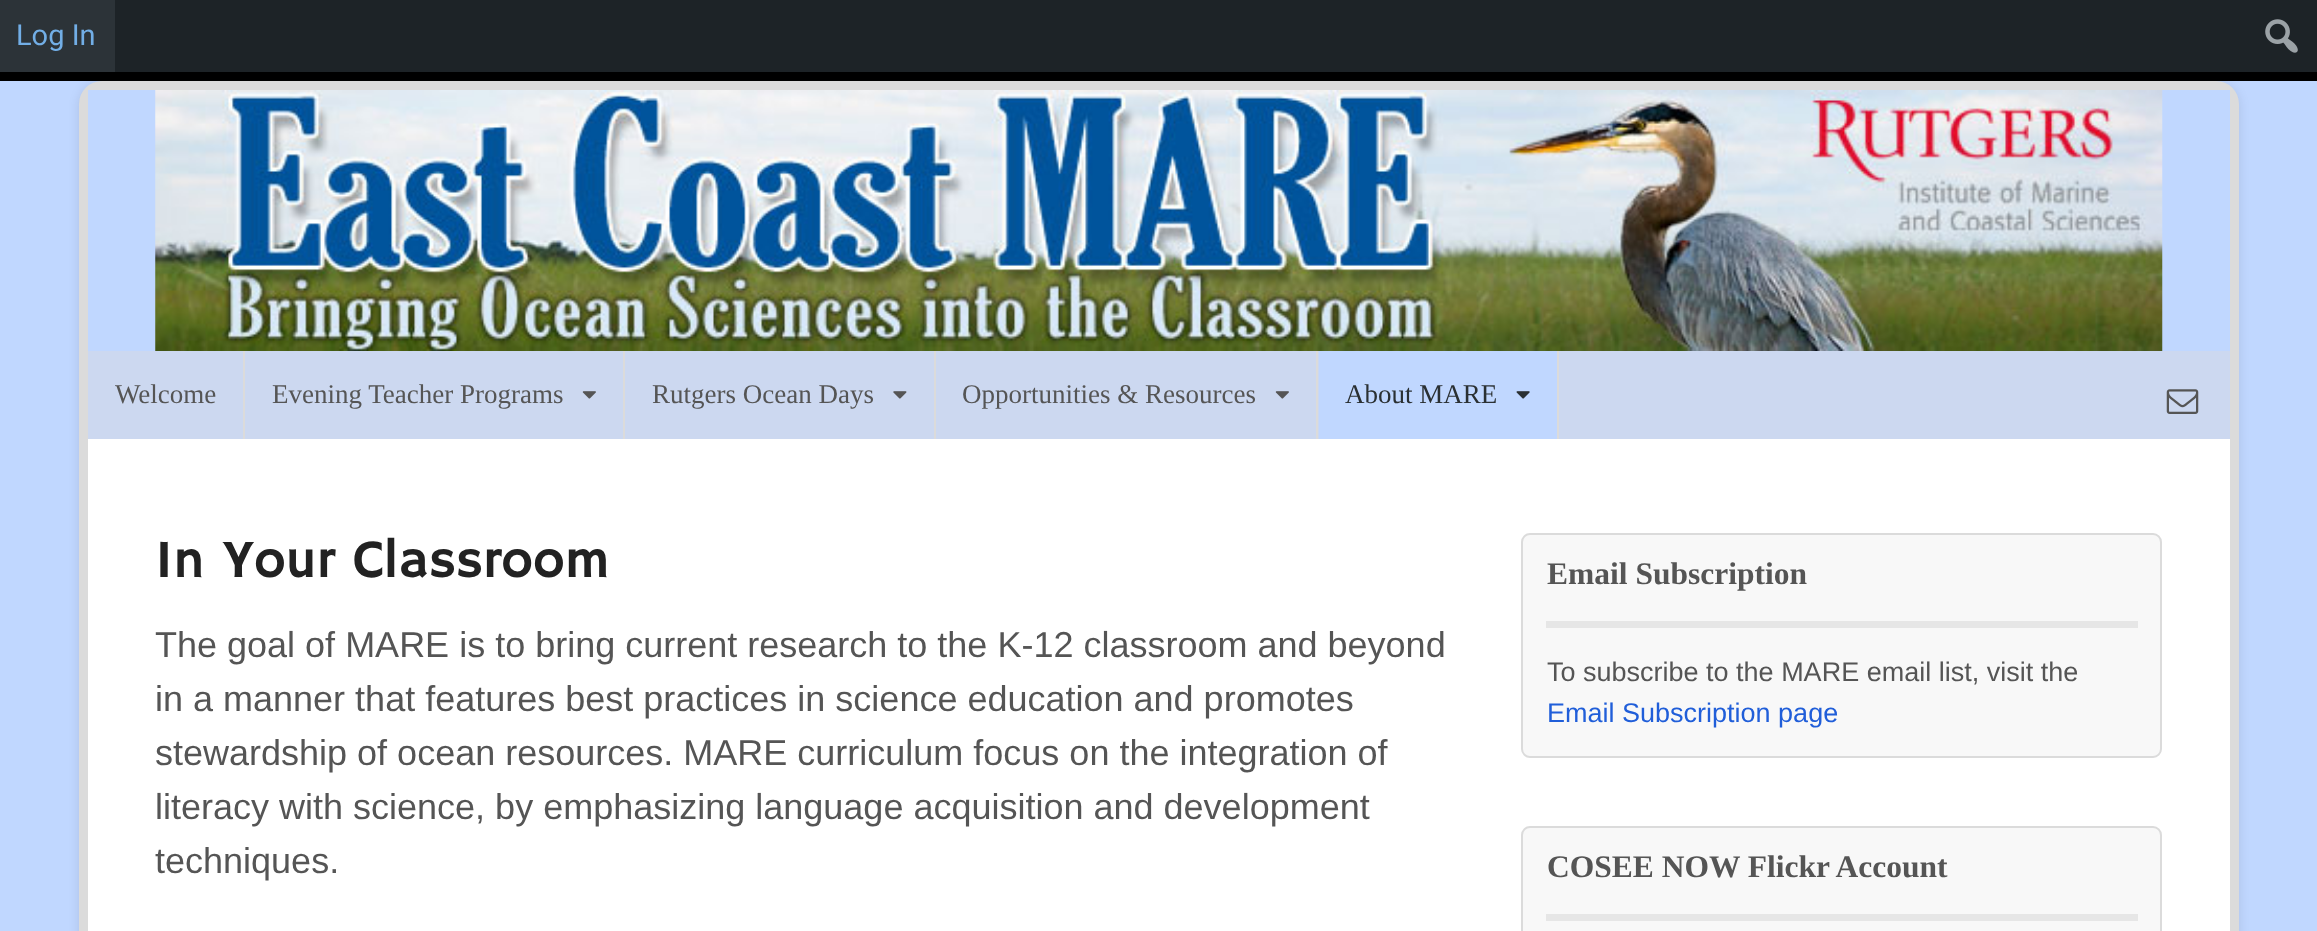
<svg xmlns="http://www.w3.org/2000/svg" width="2317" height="931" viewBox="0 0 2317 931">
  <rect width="100%" height="100%" fill="rgb(192,215,255)"/>
  <rect x="0" y="72" width="2317" height="9" fill="rgb(0,0,0)"/>
  <rect x="79" y="83" width="2160" height="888" rx="23" fill="rgba(0,0,0,0.1)" filter="blur(5.5px)"/>
  <rect x="115" y="0" width="2202" height="72" fill="rgb(29,35,39)"/>
  <rect x="0" y="0" width="115" height="72" fill="rgb(44,51,56)"/>
  <text x="16" y="45" font-family="Roboto" font-size="29" fill="rgb(114,174,230)">Log In</text>
  <image x="2265" y="19" width="33" height="34" href="pic1.png"/>
  <rect x="83.5" y="85.5" width="2151" height="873" rx="18.5" fill="rgb(255,255,255)" stroke="rgb(219,219,219)" stroke-width="9"/>
  <rect x="88" y="90" width="2142" height="261" fill="rgb(192,215,255)"/>
  <image x="155" y="90" width="2008" height="261" href="pic2.png"/>
  <rect x="88" y="351" width="2142" height="88" fill="rgb(204,216,240)"/>
  <rect x="243" y="351" width="2" height="88" fill="rgb(219,219,219)"/>
  <text x="115" y="403" font-family="Liberation Serif" font-size="27" fill="rgb(85,85,85)">Welcome</text>
  <rect x="623" y="351" width="2" height="88" fill="rgb(219,219,219)"/>
  <text x="272" y="403" font-family="Liberation Serif" font-size="27" fill="rgb(85,85,85)">Evening Teacher Programs</text>
  <image x="582" y="391" width="14" height="8" href="pic3.png"/>
  <rect x="934" y="351" width="2" height="88" fill="rgb(219,219,219)"/>
  <text x="652" y="403" font-family="Liberation Serif" font-size="27" fill="rgb(85,85,85)">Rutgers Ocean Days</text>
  <image x="893" y="391" width="14" height="8" href="pic4.png"/>
  <rect x="1316" y="351" width="2" height="88" fill="rgb(219,219,219)"/>
  <text x="962" y="403" font-family="Liberation Serif" font-size="27" fill="rgb(85,85,85)">Opportunities &amp; Resources</text>
  <image x="1275" y="391" width="14" height="8" href="pic3.png"/>
  <rect x="1557" y="351" width="2" height="88" fill="rgb(219,219,219)"/>
  <rect x="1319" y="351" width="238" height="88" fill="rgb(192,215,255)"/>
  <text x="1345" y="403" font-family="Liberation Serif" font-size="27" fill="rgb(42,48,51)">About MARE</text>
  <image x="1516" y="391" width="14" height="8" href="pic5.png"/>
  <image x="2166" y="389" width="33" height="25" href="pic6.png"/>
  <text x="155" y="577" font-family="Hammersmith One" font-size="54" fill="rgb(34,34,34)">In Your Classroom</text>
  <g font-family="Liberation Sans" font-size="36" fill="rgb(85,85,85)">
    <text>
      <tspan x="155" y="657">The goal of MARE is to bring current research to the K-12 classroom and beyond</tspan>
      <tspan x="155" y="711">in a manner that features best practices in science education and promotes</tspan>
      <tspan x="155" y="765">stewardship of ocean resources. MARE curriculum focus on the integration of</tspan>
      <tspan x="155" y="819">literacy with science, by emphasizing language acquisition and development</tspan>
      <tspan x="155" y="873">techniques.</tspan>
    </text>
  </g>
  <rect x="1522" y="534" width="639" height="223" rx="8" fill="rgb(248,248,248)" stroke="rgb(219,219,219)" stroke-width="2"/>
  <rect x="1546" y="621" width="592" height="7" fill="rgb(230,230,230)"/>
  <text x="1547" y="584" font-family="Liberation Serif" font-size="31.5" font-weight="bold" fill="rgb(85,85,85)">Email Subscription</text>
  <text x="1547" y="681" font-family="Liberation Sans" font-size="27" fill="rgb(85,85,85)">To subscribe to the MARE email list, visit the</text>
  <text x="1547" y="722" font-family="Liberation Sans" font-size="27" fill="rgb(32,94,217)">Email Subscription page</text>
  <rect x="1522" y="827" width="639" height="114" rx="8" fill="rgb(248,248,248)" stroke="rgb(219,219,219)" stroke-width="2"/>
  <rect x="1546" y="914" width="592" height="7" fill="rgb(230,230,230)"/>
  <text x="1547" y="877" font-family="Liberation Serif" font-size="31.5" font-weight="bold" fill="rgb(85,85,85)">COSEE NOW Flickr Account</text>
</svg>
